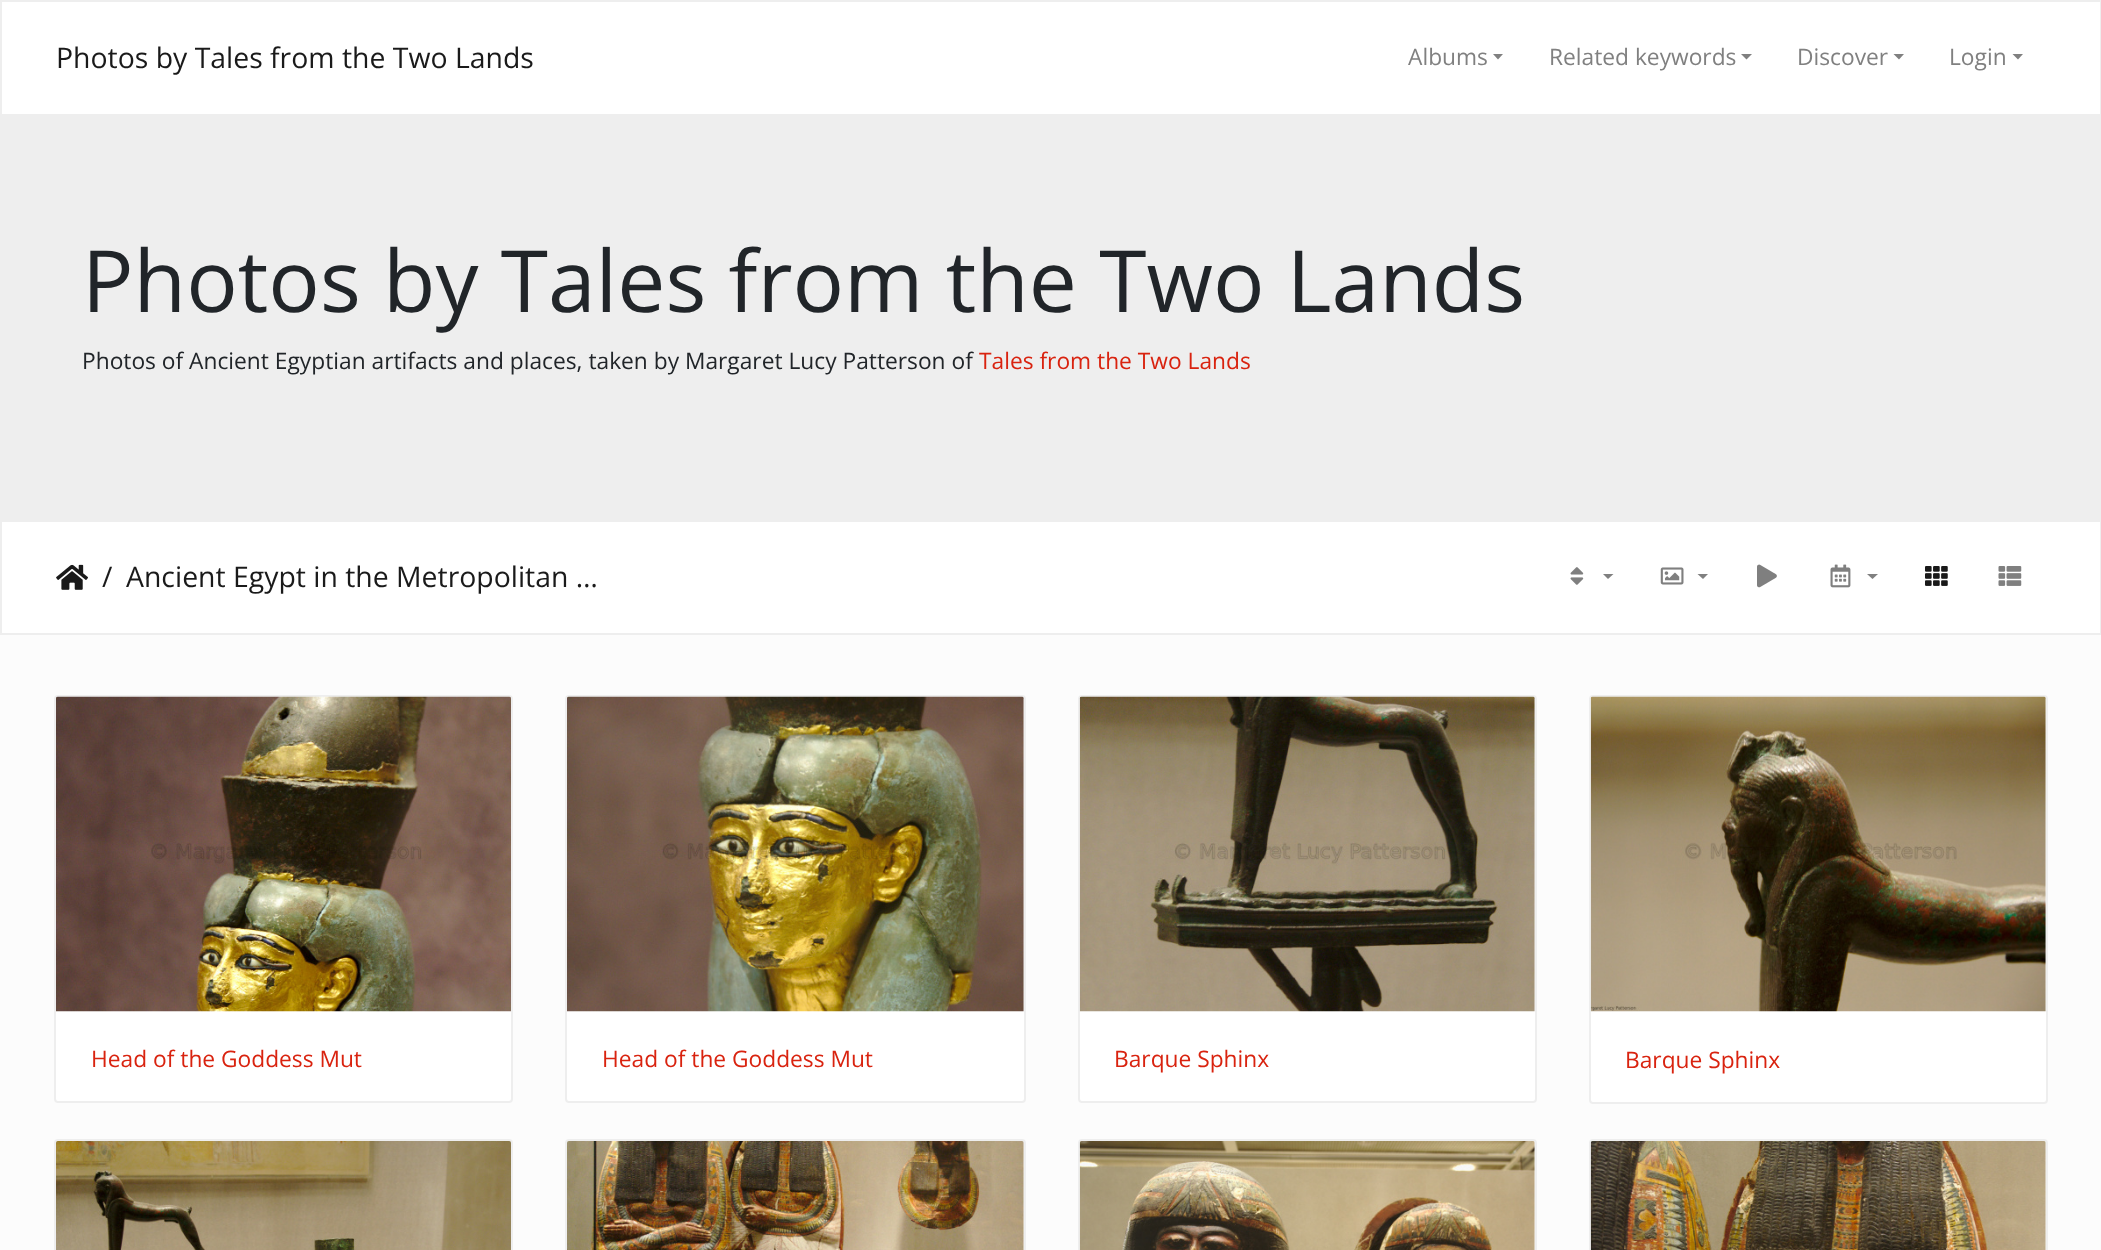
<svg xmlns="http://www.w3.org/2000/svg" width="2101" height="1250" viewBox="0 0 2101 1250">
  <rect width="100%" height="100%" fill="rgb(252,252,252)"/>
  <rect x="1" y="1" width="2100" height="114" fill="rgb(255,255,255)" stroke="rgb(238,238,238)" stroke-width="2"/>
  <text x="56" y="68" font-family="Open Sans" font-size="28.4" fill="rgb(26,26,26)">Photos by Tales from the Two Lands</text>
  <text x="1408" y="65" font-family="Open Sans" font-size="22.75" fill="rgb(128,128,128)">Albums</text>
  <path d="M1493 54H1503L1498 59.5Z" fill="rgb(128,128,128)"/>
  <text x="1549" y="65" font-family="Open Sans" font-size="22.75" fill="rgb(128,128,128)">Related keywords</text>
  <path d="M1741 54H1752L1746.5 59.5Z" fill="rgb(128,128,128)"/>
  <text x="1797" y="65" font-family="Open Sans" font-size="22.75" fill="rgb(128,128,128)">Discover</text>
  <path d="M1893.5 54H1904L1899 59.5Z" fill="rgb(128,128,128)"/>
  <text x="1949" y="65" font-family="Open Sans" font-size="22.75" fill="rgb(128,128,128)">Login</text>
  <path d="M2012.5 54H2023L2018 59.5Z" fill="rgb(128,128,128)"/>
  <rect x="0" y="116" width="2101" height="404" fill="rgb(238,238,238)"/>
  <text x="82" y="312" font-family="Open Sans" font-size="85.75" fill="rgb(33,37,41)">Photos by Tales from the Two Lands</text>
  <text x="82" y="369" font-family="Open Sans" font-size="22.75" fill="rgb(33,37,41)">Photos of Ancient Egyptian artifacts and places, taken by Margaret Lucy Patterson of</text>
  <text x="979" y="369" font-family="Open Sans" font-size="22.75" fill="rgb(217,35,15)">Tales from the Two Lands</text>
  <rect x="1" y="521" width="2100" height="113" fill="rgb(255,255,255)" stroke="rgb(238,238,238)" stroke-width="2"/>
  <image x="56" y="564" width="32" height="26" href="pic1.png"/>
  <g font-family="Open Sans" font-size="28.4" fill="rgb(26,26,26)">
    <text x="102" y="587">/</text>
    <text x="126" y="587">Ancient Egypt in the Metropolitan …</text>
  </g>
  <image x="1570" y="567" width="14" height="18" href="pic2.png"/>
  <path d="M1603 574H1613.5L1608 579Z" fill="rgb(128,128,128)"/>
  <image x="1660" y="567" width="24" height="18" href="pic3.png"/>
  <path d="M1697.5 574H1708L1703 579Z" fill="rgb(128,128,128)"/>
  <image x="1757" y="564" width="20" height="24" href="pic4.png"/>
  <image x="1830" y="564" width="21" height="24" href="pic5.png"/>
  <path d="M1867 574H1878L1872.5 579Z" fill="rgb(128,128,128)"/>
  <image x="1925" y="566" width="23" height="20" href="pic6.png"/>
  <image x="1998" y="566" width="24" height="20" href="pic7.png"/>
  <rect x="55" y="696" width="457" height="406" rx="3" fill="rgb(255,255,255)" stroke="rgb(238,238,238)" stroke-width="2"/>
  <image x="56" y="696" width="455" height="316" href="pic8.png"/>
  <text x="91" y="1067" font-family="Open Sans" font-size="22.75" fill="rgb(217,35,15)">Head of the Goddess Mut</text>
  <rect x="566" y="696" width="459" height="406" rx="3" fill="rgb(255,255,255)" stroke="rgb(238,238,238)" stroke-width="2"/>
  <image x="567" y="696" width="457" height="316" href="pic9.png"/>
  <text x="602" y="1067" font-family="Open Sans" font-size="22.75" fill="rgb(217,35,15)">Head of the Goddess Mut</text>
  <rect x="1079" y="696" width="457" height="406" rx="3" fill="rgb(255,255,255)" stroke="rgb(238,238,238)" stroke-width="2"/>
  <image x="1079" y="696" width="456" height="316" href="pic10.png"/>
  <text x="1114" y="1067" font-family="Open Sans" font-size="22.75" fill="rgb(217,35,15)">Barque Sphinx</text>
  <rect x="1590" y="696" width="457" height="407" rx="3" fill="rgb(255,255,255)" stroke="rgb(238,238,238)" stroke-width="2"/>
  <image x="1590" y="696" width="456" height="316" href="pic11.png"/>
  <text x="1625" y="1068" font-family="Open Sans" font-size="22.75" fill="rgb(217,35,15)">Barque Sphinx</text>
  <rect x="55" y="1140" width="457" height="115" rx="3" fill="none" stroke="rgb(238,238,238)" stroke-width="2"/>
  <image x="56" y="1141" width="455" height="109" href="pic12.png"/>
  <rect x="566" y="1140" width="459" height="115" rx="3" fill="rgb(255,255,255)" stroke="rgb(238,238,238)" stroke-width="2"/>
  <image x="567" y="1141" width="457" height="109" href="pic13.png"/>
  <rect x="1079" y="1140" width="457" height="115" rx="3" fill="rgb(255,255,255)" stroke="rgb(238,238,238)" stroke-width="2"/>
  <image x="1079" y="1141" width="456" height="109" href="pic14.png"/>
  <rect x="1590" y="1140" width="457" height="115" rx="3" fill="rgb(255,255,255)" stroke="rgb(238,238,238)" stroke-width="2"/>
  <image x="1590" y="1141" width="456" height="109" href="pic15.png"/>
</svg>
